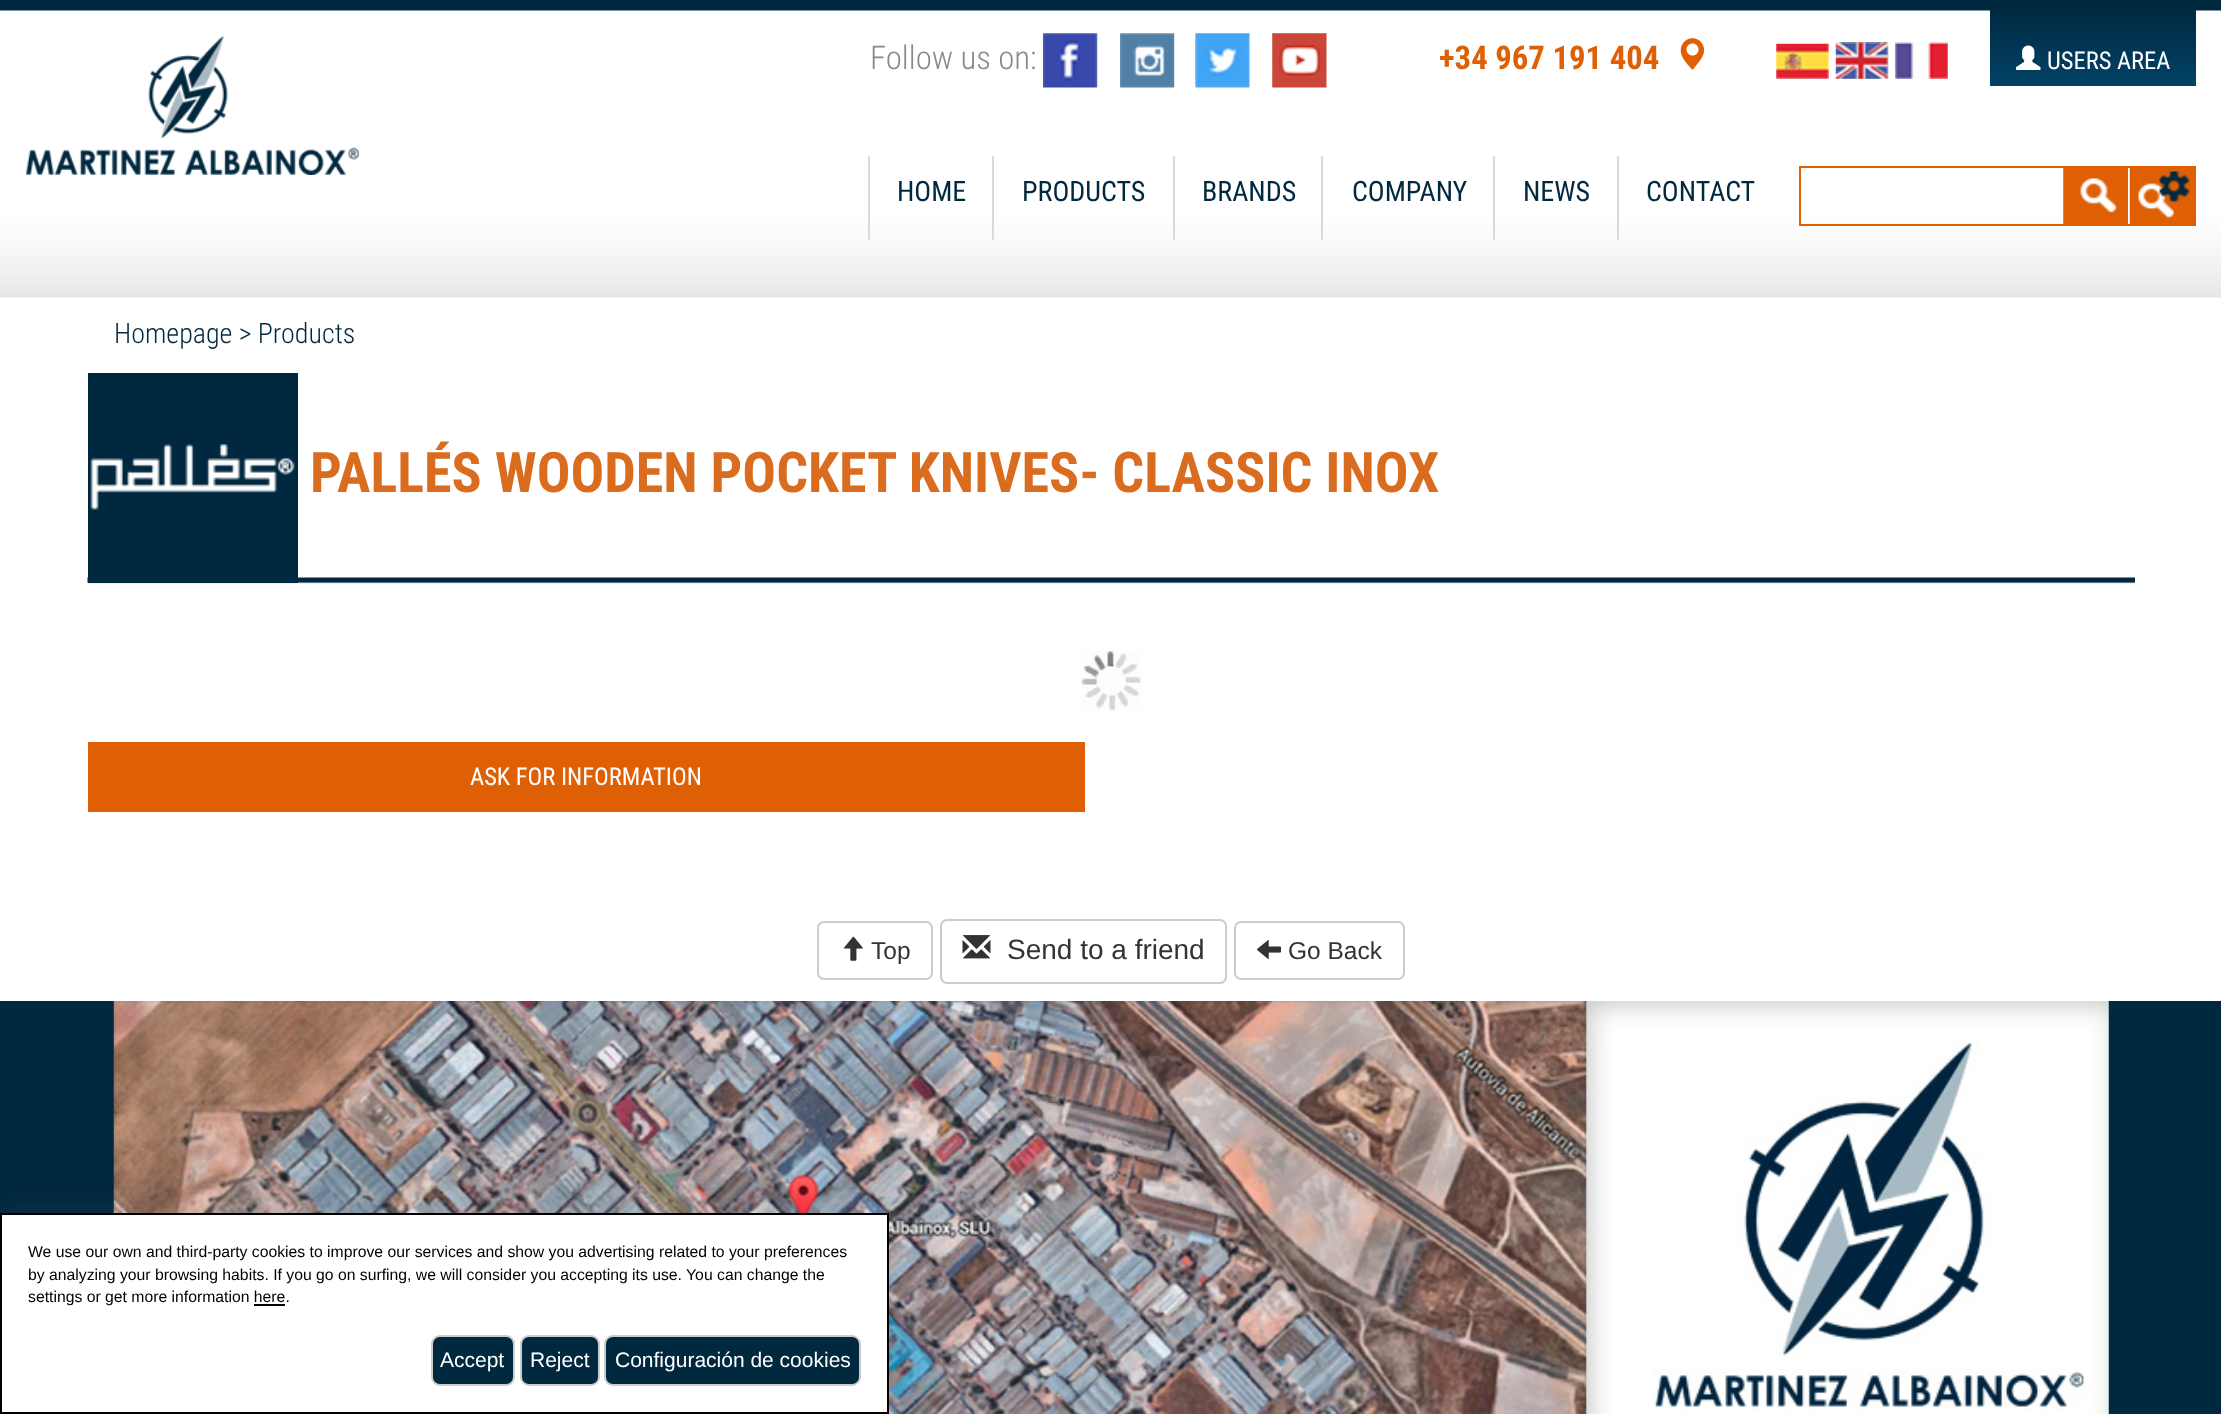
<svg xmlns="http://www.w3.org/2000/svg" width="2221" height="1414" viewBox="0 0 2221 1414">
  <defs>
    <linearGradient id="g1" gradientUnits="userSpaceOnUse" x1="2093" y1="7" x2="2093" y2="86"><stop offset="0" stop-color="rgb(0,40,63)"/><stop offset="1" stop-color="rgb(2,66,103)"/></linearGradient>
  </defs>
  <rect width="100%" height="100%" fill="rgb(255,255,255)"/>
  <image x="0" y="0" width="2221" height="298" href="pic1.png"/>
  <image x="26" y="36" width="333" height="139" href="pic2.png"/>
  <text x="870" y="69" font-family="Roboto Condensed" font-size="32.75" font-weight="300" fill="rgb(138,138,138)">Follow us on:</text>
  <image x="1043" y="33" width="55" height="55" href="pic3.png"/>
  <image x="1120" y="33" width="55" height="55" href="pic4.png"/>
  <image x="1195" y="33" width="55" height="55" href="pic5.png"/>
  <image x="1272" y="33" width="55" height="55" href="pic6.png"/>
  <text x="1439" y="69" font-family="Roboto Condensed" font-size="32.75" font-weight="bold" fill="rgb(223,95,5)">+34 967 191 404</text>
  <image x="1680" y="38" width="25" height="32" href="pic7.png"/>
  <image x="1776" y="43" width="53" height="36" href="pic8.png"/>
  <image x="1835" y="42" width="54" height="37" href="pic9.png"/>
  <image x="1895" y="42" width="53" height="37" href="pic10.png"/>
  <rect x="1990" y="10" width="206" height="76" fill="url(#g1)"/>
  <image x="2016" y="45" width="25" height="25" href="pic11.png"/>
  <text x="2047" y="69" font-family="Roboto Condensed" font-size="24.5" fill="rgb(255,255,255)">USERS AREA</text>
  <rect x="868" y="156" width="2" height="84" fill="rgb(213,219,224)"/>
  <text x="897" y="201" font-family="Roboto Condensed" font-size="28" fill="rgb(0,40,63)">HOME</text>
  <rect x="992" y="156" width="2" height="84" fill="rgb(213,219,224)"/>
  <text x="1022" y="201" font-family="Roboto Condensed" font-size="28" fill="rgb(0,40,63)">PRODUCTS</text>
  <rect x="1173" y="156" width="2" height="84" fill="rgb(213,219,224)"/>
  <text x="1202" y="201" font-family="Roboto Condensed" font-size="28" fill="rgb(0,40,63)">BRANDS</text>
  <rect x="1321" y="156" width="2" height="84" fill="rgb(213,219,224)"/>
  <text x="1352" y="201" font-family="Roboto Condensed" font-size="28" fill="rgb(0,40,63)">COMPANY</text>
  <rect x="1493" y="156" width="2" height="84" fill="rgb(213,219,224)"/>
  <text x="1523" y="201" font-family="Roboto Condensed" font-size="28" fill="rgb(0,40,63)">NEWS</text>
  <rect x="1617" y="156" width="2" height="84" fill="rgb(213,219,224)"/>
  <text x="1646" y="201" font-family="Roboto Condensed" font-size="28" fill="rgb(0,40,63)">CONTACT</text>
  <rect x="1800" y="167" width="395" height="58" fill="none" stroke="rgb(223,95,5)" stroke-width="2"/>
  <image x="2063" y="168" width="65" height="56" href="pic12.png"/>
  <image x="2129" y="168" width="65" height="56" href="pic13.png"/>
  <text x="114" y="343" font-family="Roboto Condensed" font-size="28" font-weight="300" fill="rgb(0,40,63)">Homepage &gt; Products</text>
  <image x="87" y="577" width="2048" height="7" href="pic14.png"/>
  <rect x="88" y="373" width="210" height="210" fill="rgb(0,40,63)"/>
  <image x="90" y="444" width="205" height="66" href="pic15.png"/>
  <text x="310" y="492" font-family="Roboto Condensed" font-size="56" font-weight="bold" fill="rgb(217,108,30)">PALLÉS WOODEN POCKET KNIVES- CLASSIC INOX</text>
  <image x="1081" y="651" width="60" height="60" href="pic16.png"/>
  <rect x="88" y="742" width="997" height="70" fill="rgb(223,95,5)"/>
  <text x="470" y="785" font-family="Roboto Condensed" font-size="24.5" fill="rgb(255,255,255)">ASK FOR INFORMATION</text>
  <rect x="818" y="922" width="114" height="57" rx="6" fill="none" stroke="rgb(204,204,204)" stroke-width="2"/>
  <image x="843" y="936" width="20" height="25" href="pic17.png"/>
  <text x="871" y="959" font-family="Liberation Sans" font-size="24.5" fill="rgb(51,51,51)">Top</text>
  <rect x="941" y="920" width="285" height="63" rx="6" fill="none" stroke="rgb(204,204,204)" stroke-width="2"/>
  <image x="962" y="935" width="29" height="24" href="pic18.png"/>
  <text x="1007" y="959" font-family="Liberation Sans" font-size="28" fill="rgb(51,51,51)">Send to a friend</text>
  <rect x="1235" y="922" width="169" height="57" rx="6" fill="none" stroke="rgb(204,204,204)" stroke-width="2"/>
  <image x="1257" y="940" width="24" height="20" href="pic19.png"/>
  <text x="1288" y="959" font-family="Liberation Sans" font-size="24.5" fill="rgb(51,51,51)">Go Back</text>
  <rect x="0" y="1001" width="2221" height="413" fill="rgb(0,40,63)"/>
  <image x="113" y="1001" width="1996" height="413" href="pic20.png"/>
  <rect x="0" y="1213" width="889" height="201" fill="rgba(130,132,134,0.15)" filter="blur(13px)"/>
  <rect x="1" y="1214" width="887" height="199" fill="rgb(255,255,255)" stroke="rgb(0,0,0)" stroke-width="2"/>
  <g font-family="Liberation Sans" font-size="15.75" fill="rgb(0,0,0)">
    <text>
      <tspan x="28" y="1257">We use our own and third-party cookies to improve our services and show you advertising related to your preferences</tspan>
      <tspan x="28" y="1280">by analyzing your browsing habits. If you go on surfing, we will consider you accepting its use. You can change the</tspan>
      <tspan x="28" y="1302">settings or get more information here.</tspan>
    </text>
  </g>
  <rect x="254" y="1304" width="31" height="2" fill="rgb(0,0,0)"/>
  <rect x="432" y="1336" width="82" height="49" rx="8" fill="rgb(0,40,63)" stroke="rgb(204,204,204)" stroke-width="2"/>
  <text x="440" y="1367" font-family="Liberation Sans" font-size="21" fill="rgb(255,255,255)">Accept</text>
  <rect x="521" y="1336" width="78" height="49" rx="8" fill="rgb(0,40,63)" stroke="rgb(204,204,204)" stroke-width="2"/>
  <text x="530" y="1367" font-family="Liberation Sans" font-size="21" fill="rgb(255,255,255)">Reject</text>
  <rect x="605" y="1336" width="255" height="49" rx="8" fill="rgb(0,40,63)" stroke="rgb(204,204,204)" stroke-width="2"/>
  <text x="615" y="1367" font-family="Liberation Sans" font-size="21" fill="rgb(255,255,255)">Configuración de cookies</text>
</svg>
